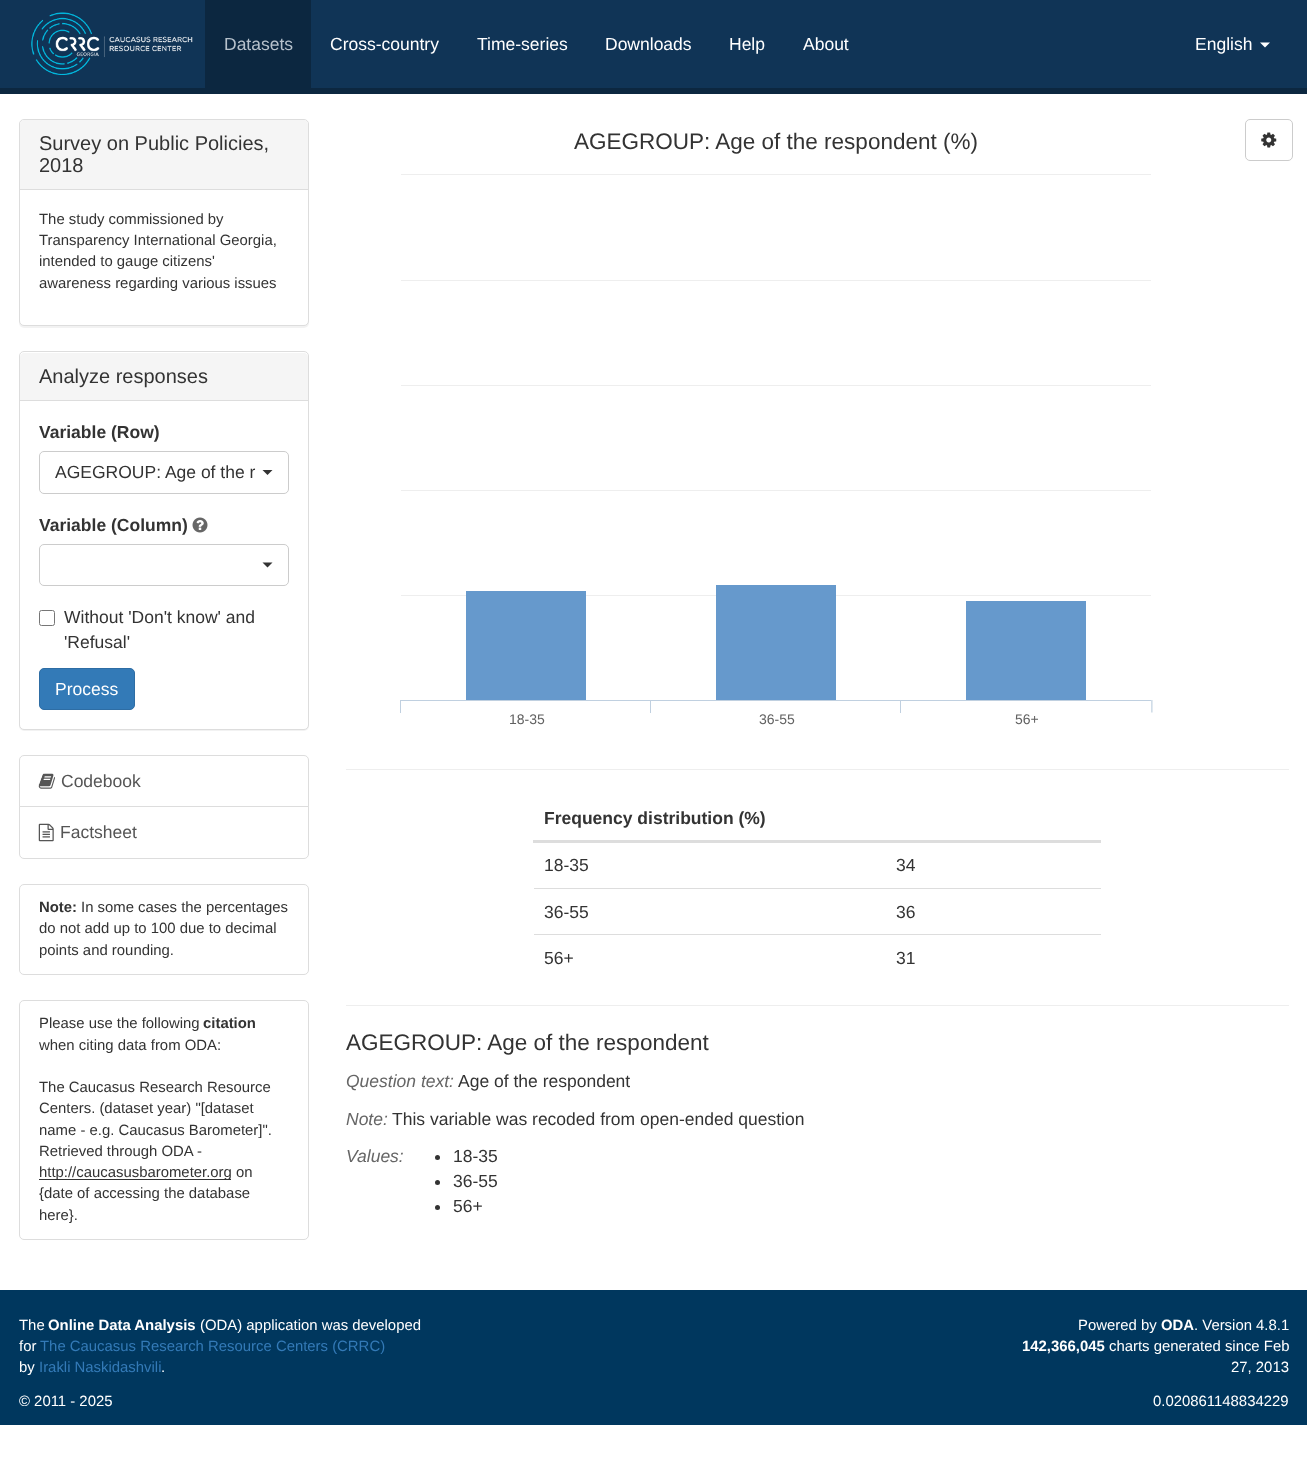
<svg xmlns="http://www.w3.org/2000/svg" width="1307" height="1466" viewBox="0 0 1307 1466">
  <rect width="100%" height="100%" fill="rgb(255,255,255)"/>
  <rect x="0" y="0" width="1307" height="88" fill="rgb(16,52,86)"/>
  <rect x="0" y="88" width="1307" height="6" fill="rgb(12,39,64)"/>
  <image x="31" y="12" width="162" height="63" href="pic1.png"/>
  <rect x="205" y="0" width="106" height="88" fill="rgb(12,39,64)"/>
  <text x="224" y="50" font-family="Liberation Sans" font-size="17.5" fill="rgb(183,194,204)">Datasets</text>
  <g font-family="Liberation Sans" font-size="17.5" fill="rgb(255,255,255)">
    <text x="330" y="50">Cross-country</text>
    <text x="477" y="50">Time-series</text>
    <text x="605" y="50">Downloads</text>
    <text x="729" y="50">Help</text>
    <text x="803" y="50">About</text>
    <text x="1195" y="50">English</text>
  </g>
  <path d="M1260 42.5H1270L1265 47.5Z" fill="rgb(255,255,255)"/>
  <rect x="19" y="120" width="290" height="208" rx="5" fill="rgba(0,0,0,0.05)" filter="blur(0.5px)"/>
  <rect x="19.5" y="119.5" width="289" height="206" rx="4.5" fill="rgb(255,255,255)" stroke="rgb(221,221,221)"/>
  <path d="M24 120H304C306 120 308 122 308 124V190H20V124C20 122 22 120 24 120Z" fill="rgb(245,245,245)"/>
  <rect x="20" y="189" width="288" height="1" fill="rgb(221,221,221)"/>
  <g font-family="Liberation Sans" font-size="20" fill="rgb(51,51,51)">
    <text>
      <tspan x="39" y="150">Survey on Public Policies,</tspan>
      <tspan x="39" y="172">2018</tspan>
    </text>
  </g>
  <g font-family="Liberation Sans" font-size="14.9" fill="rgb(51,51,51)">
    <text>
      <tspan x="39" y="224">The study commissioned by</tspan>
      <tspan x="39" y="245">Transparency International Georgia,</tspan>
      <tspan x="39" y="266">intended to gauge citizens'</tspan>
      <tspan x="39" y="288">awareness regarding various issues</tspan>
    </text>
  </g>
  <rect x="19" y="353" width="290" height="378" rx="5" fill="rgba(0,0,0,0.05)" filter="blur(0.5px)"/>
  <rect x="19.5" y="351.5" width="289" height="378" rx="4.5" fill="rgb(255,255,255)" stroke="rgb(221,221,221)"/>
  <path d="M24 353H304C306 353 308 355 308 357V401H20V357C20 355 22 353 24 353Z" fill="rgb(245,245,245)"/>
  <rect x="20" y="400" width="288" height="1" fill="rgb(221,221,221)"/>
  <text x="39" y="383" font-family="Liberation Sans" font-size="20" fill="rgb(51,51,51)">Analyze responses</text>
  <text x="39" y="438" font-family="Liberation Sans" font-size="17.5" font-weight="bold" fill="rgb(51,51,51)">Variable (Row)</text>
  <rect x="39.5" y="451.5" width="249" height="42" rx="4.5" fill="none" stroke="rgb(204,204,204)"/>
  <text x="55" y="478" font-family="Liberation Sans" font-size="17.5" fill="rgb(51,51,51)">AGEGROUP: Age of the r</text>
  <path d="M262.5 470H272.5L267.5 475Z" fill="rgb(51,51,51)"/>
  <text x="39" y="531" font-family="Liberation Sans" font-size="17.5" font-weight="bold" fill="rgb(51,51,51)">Variable (Column)</text>
  <image x="192" y="517" width="16" height="16" href="pic2.png"/>
  <rect x="39.5" y="544.5" width="249" height="41" rx="4.5" fill="none" stroke="rgb(204,204,204)"/>
  <path d="M262.5 562.5H272.5L267.5 567.5Z" fill="rgb(51,51,51)"/>
  <rect x="39.5" y="610.5" width="15" height="15" rx="2" fill="none" stroke="rgb(118,118,118)"/>
  <g font-family="Liberation Sans" font-size="17.5" fill="rgb(51,51,51)">
    <text>
      <tspan x="64" y="623">Without 'Don't know' and</tspan>
      <tspan x="64" y="648">'Refusal'</tspan>
    </text>
  </g>
  <rect x="39.5" y="668.5" width="95" height="41" rx="4.5" fill="rgb(51,122,183)" stroke="rgb(46,109,164)"/>
  <text x="55" y="695" font-family="Liberation Sans" font-size="17.5" fill="rgb(255,255,255)">Process</text>
  <path d="M24 755.5H304C306.5 755.5 308.5 757.5 308.5 760V807.5H19.5V760C19.5 757.5 21.5 755.5 24 755.5Z" fill="none" stroke="rgb(221,221,221)"/>
  <image x="38" y="773" width="17" height="16" href="pic3.png"/>
  <text x="61" y="787" font-family="Liberation Sans" font-size="17.5" fill="rgb(85,85,85)">Codebook</text>
  <path d="M19.5 806.5H308.5V854C308.5 856.5 306.5 858.5 304 858.5H24C21.5 858.5 19.5 856.5 19.5 854Z" fill="rgb(255,255,255)" stroke="rgb(221,221,221)"/>
  <image x="38" y="823" width="16" height="19" href="pic4.png"/>
  <text x="60" y="838" font-family="Liberation Sans" font-size="17.5" fill="rgb(85,85,85)">Factsheet</text>
  <rect x="19.5" y="884.5" width="289" height="90" rx="4.5" fill="none" stroke="rgb(221,221,221)"/>
  <text x="39" y="912" font-family="Liberation Sans" font-size="14.9" font-weight="bold" fill="rgb(51,51,51)">Note:</text>
  <g font-family="Liberation Sans" font-size="14.9" fill="rgb(51,51,51)">
    <text x="81" y="912">In some cases the percentages</text>
    <text>
      <tspan x="39" y="933">do not add up to 100 due to decimal</tspan>
      <tspan x="39" y="955">points and rounding.</tspan>
    </text>
  </g>
  <rect x="19.5" y="1000.5" width="289" height="239" rx="4.5" fill="none" stroke="rgb(221,221,221)"/>
  <text x="39" y="1028" font-family="Liberation Sans" font-size="14.9" fill="rgb(51,51,51)">Please use the following</text>
  <text x="203" y="1028" font-family="Liberation Sans" font-size="14.9" font-weight="bold" fill="rgb(51,51,51)">citation</text>
  <g font-family="Liberation Sans" font-size="14.9" fill="rgb(51,51,51)">
    <text x="39" y="1050">when citing data from ODA:</text>
    <text>
      <tspan x="39" y="1092">The Caucasus Research Resource</tspan>
      <tspan x="39" y="1113">Centers. (dataset year) "[dataset</tspan>
      <tspan x="39" y="1135">name - e.g. Caucasus Barometer]".</tspan>
      <tspan x="39" y="1156">Retrieved through ODA -</tspan>
    </text>
  </g>
  <rect x="39" y="1179" width="192" height="1" fill="rgb(51,51,51)"/>
  <g font-family="Liberation Sans" font-size="14.9" fill="rgb(51,51,51)">
    <text>
      <tspan x="39" y="1177">http://caucasusbarometer.org on</tspan>
      <tspan x="39" y="1198">{date of accessing the database</tspan>
      <tspan x="39" y="1220">here}.</tspan>
    </text>
  </g>
  <text x="574" y="149" font-family="Liberation Sans" font-size="22.5" fill="rgb(51,51,51)">AGEGROUP: Age of the respondent (%)</text>
  <image x="400" y="174" width="753" height="539" href="pic5.png"/>
  <g font-family="Liberation Sans" font-size="14" fill="rgb(96,96,96)">
    <text x="509" y="724">18-35</text>
    <text x="759" y="724">36-55</text>
    <text x="1015" y="724">56+</text>
  </g>
  <rect x="1245.5" y="119.5" width="47" height="41" rx="4.5" fill="none" stroke="rgb(204,204,204)"/>
  <image x="1261" y="132" width="16" height="16" href="pic6.png"/>
  <rect x="346" y="769" width="943" height="1" fill="rgb(238,238,238)"/>
  <rect x="533" y="840" width="568" height="3" fill="rgb(221,221,221)"/>
  <text x="544" y="824" font-family="Liberation Sans" font-size="17.5" font-weight="bold" fill="rgb(51,51,51)">Frequency distribution (%)</text>
  <g font-family="Liberation Sans" font-size="17.5" fill="rgb(51,51,51)">
    <text x="544" y="871">18-35</text>
    <text x="896" y="871">34</text>
    <text x="544" y="918">36-55</text>
  </g>
  <rect x="534" y="888" width="567" height="1" fill="rgb(221,221,221)"/>
  <g font-family="Liberation Sans" font-size="17.5" fill="rgb(51,51,51)">
    <text x="896" y="918">36</text>
    <text x="544" y="964">56+</text>
  </g>
  <rect x="534" y="934" width="567" height="1" fill="rgb(221,221,221)"/>
  <text x="896" y="964" font-family="Liberation Sans" font-size="17.5" fill="rgb(51,51,51)">31</text>
  <rect x="346" y="1005" width="943" height="1" fill="rgb(238,238,238)"/>
  <text x="346" y="1050" font-family="Liberation Sans" font-size="22.5" fill="rgb(51,51,51)">AGEGROUP: Age of the respondent</text>
  <text x="346" y="1087" font-family="Liberation Sans" font-size="17.5" font-style="italic" fill="rgb(102,102,102)">Question text:</text>
  <text x="458" y="1087" font-family="Liberation Sans" font-size="17.5" fill="rgb(51,51,51)">Age of the respondent</text>
  <text x="346" y="1125" font-family="Liberation Sans" font-size="17.5" font-style="italic" fill="rgb(102,102,102)">Note:</text>
  <text x="392" y="1125" font-family="Liberation Sans" font-size="17.5" fill="rgb(51,51,51)">This variable was recoded from open-ended question</text>
  <text x="346" y="1162" font-family="Liberation Sans" font-size="17.5" font-style="italic" fill="rgb(102,102,102)">Values:</text>
  <circle cx="437.5" cy="1157.5" r="2.5" fill="rgb(51,51,51)"/>
  <text x="453" y="1162" font-family="Liberation Sans" font-size="17.5" fill="rgb(51,51,51)">18-35</text>
  <circle cx="437.5" cy="1182.5" r="2.5" fill="rgb(51,51,51)"/>
  <text x="453" y="1187" font-family="Liberation Sans" font-size="17.5" fill="rgb(51,51,51)">36-55</text>
  <circle cx="437.5" cy="1207.5" r="2.5" fill="rgb(51,51,51)"/>
  <text x="453" y="1212" font-family="Liberation Sans" font-size="17.5" fill="rgb(51,51,51)">56+</text>
  <rect x="0" y="1290" width="1307" height="135" fill="rgb(0,55,94)"/>
  <text x="19" y="1330" font-family="Liberation Sans" font-size="14.9" fill="rgb(255,255,255)">The</text>
  <text x="48" y="1330" font-family="Liberation Sans" font-size="14.9" font-weight="bold" fill="rgb(255,255,255)">Online Data Analysis</text>
  <g font-family="Liberation Sans" font-size="14.9" fill="rgb(255,255,255)">
    <text x="200" y="1330">(ODA) application was developed</text>
    <text x="19" y="1351">for</text>
  </g>
  <text x="40" y="1351" font-family="Liberation Sans" font-size="14.9" fill="rgb(51,122,183)">The Caucasus Research Resource Centers (CRRC)</text>
  <text x="19" y="1372" font-family="Liberation Sans" font-size="14.9" fill="rgb(255,255,255)">by</text>
  <text x="39" y="1372" font-family="Liberation Sans" font-size="14.9" fill="rgb(51,122,183)">Irakli Naskidashvili</text>
  <g font-family="Liberation Sans" font-size="14.9" fill="rgb(255,255,255)">
    <text x="161" y="1372">.</text>
    <text x="19" y="1406">© 2011 - 2025</text>
    <text x="1078" y="1330">Powered by</text>
  </g>
  <text x="1161" y="1330" font-family="Liberation Sans" font-size="14.9" font-weight="bold" fill="rgb(255,255,255)">ODA</text>
  <text x="1194" y="1330" font-family="Liberation Sans" font-size="14.9" fill="rgb(255,255,255)">. Version 4.8.1</text>
  <text x="1022" y="1351" font-family="Liberation Sans" font-size="14.9" font-weight="bold" fill="rgb(255,255,255)">142,366,045</text>
  <g font-family="Liberation Sans" font-size="14.9" fill="rgb(255,255,255)">
    <text x="1109" y="1351">charts generated since Feb</text>
    <text x="1231" y="1372">27, 2013</text>
    <text x="1153" y="1406">0.020861148834229</text>
  </g>
</svg>
